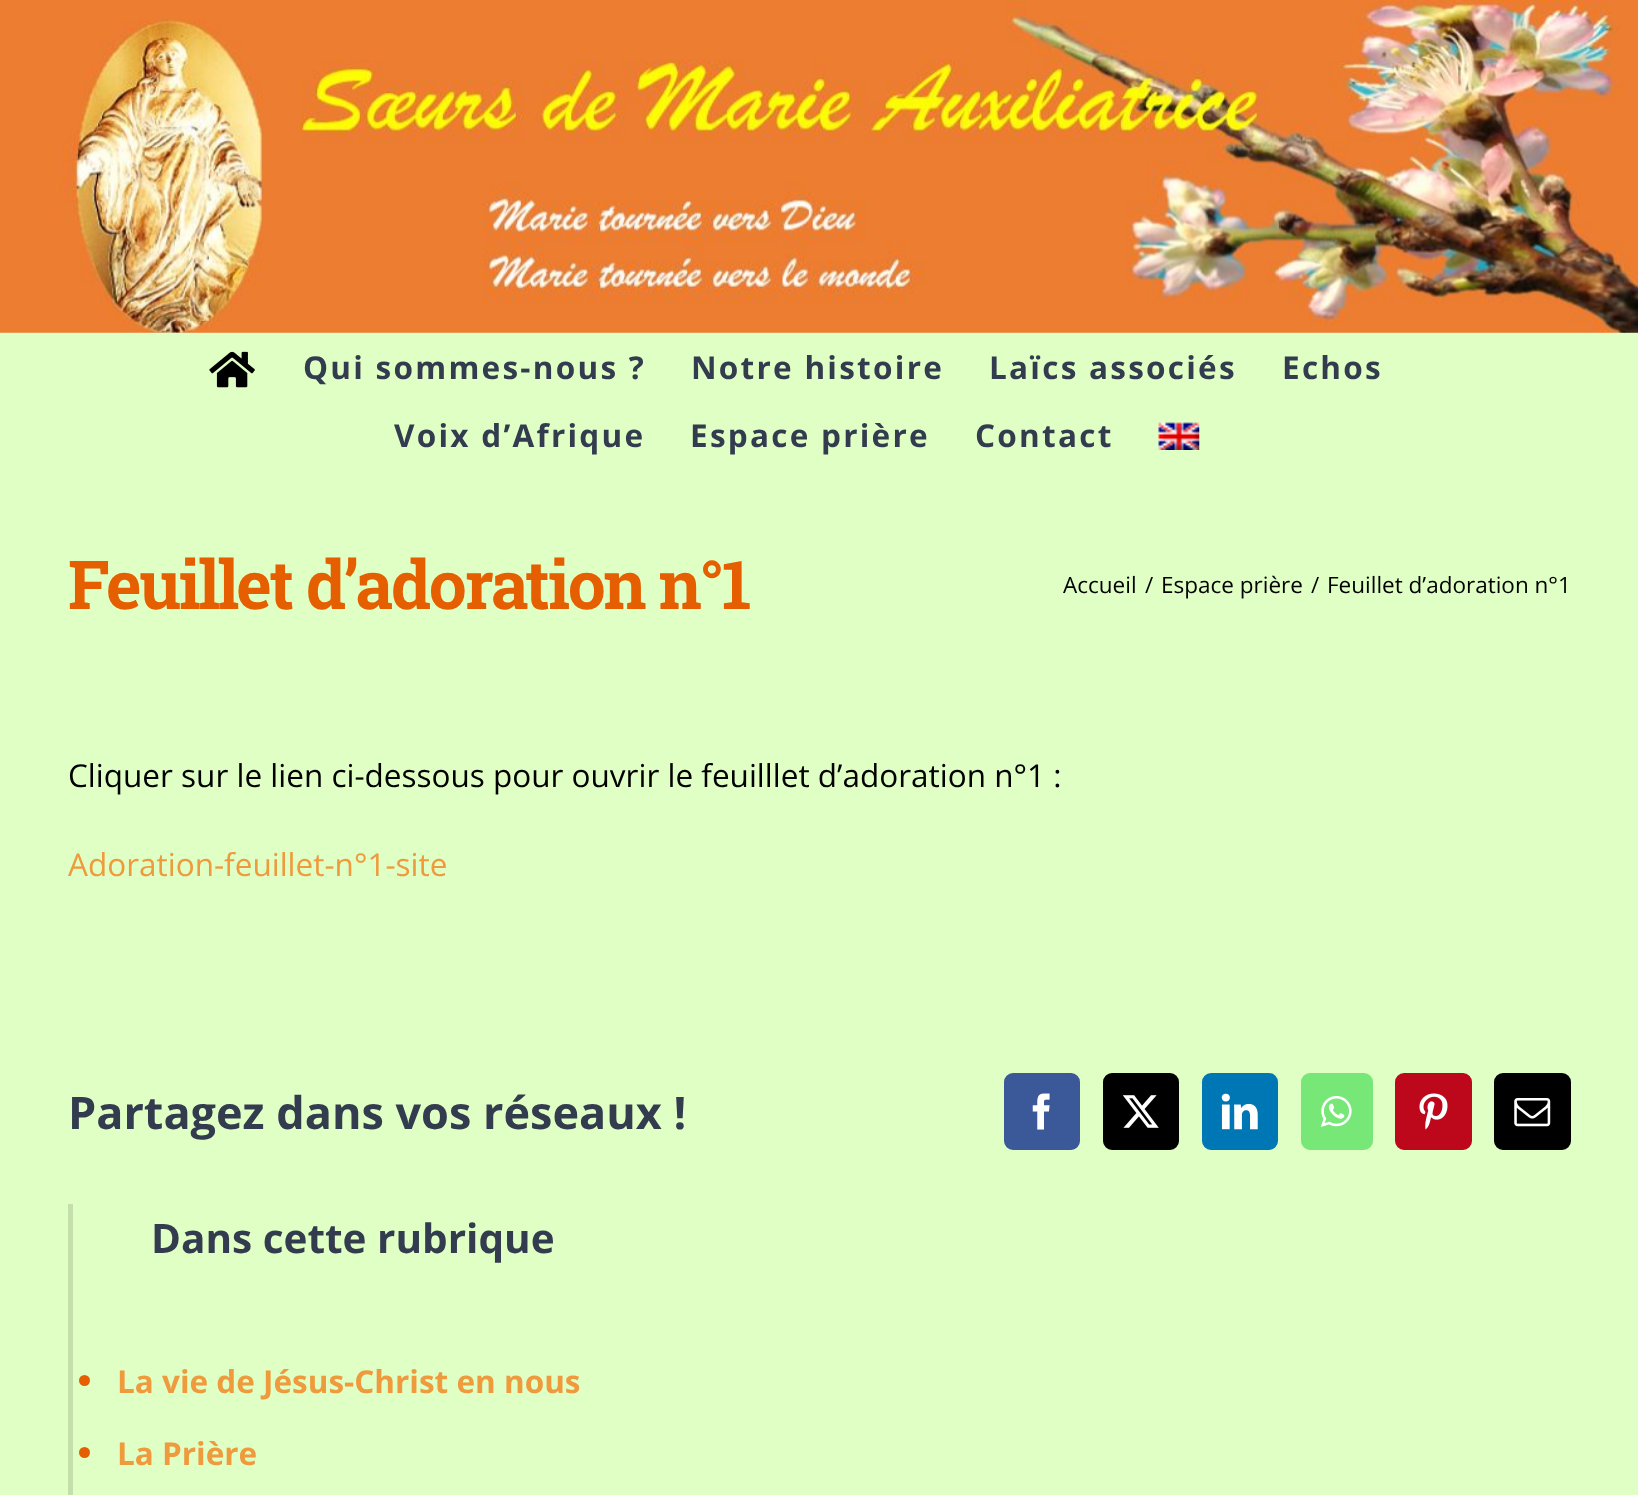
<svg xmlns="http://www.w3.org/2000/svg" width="1638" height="1495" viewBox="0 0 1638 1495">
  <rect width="100%" height="100%" fill="rgb(224,255,197)"/>
  <image x="0" y="0" width="1638" height="333" href="pic1.png"/>
  <image x="209" y="351" width="46" height="37" href="pic2.png"/>
  <g font-family="Open Sans" font-size="31.5" font-weight="bold" letter-spacing="2.25" fill="rgb(51,60,78)">
    <text x="303" y="379">Qui sommes-nous ?</text>
    <text x="691" y="379">Notre histoire</text>
    <text x="989" y="379">Laïcs associés</text>
    <text x="1282" y="379">Echos</text>
    <text x="394" y="447">Voix d’Afrique</text>
    <text x="690" y="447">Espace prière</text>
    <text x="975" y="447">Contact</text>
  </g>
  <image x="1158" y="422" width="42" height="28" href="pic3.png"/>
  <text x="68" y="609" font-family="Roboto Slab" font-size="67.5" font-weight="bold" letter-spacing="-2.25" fill="rgb(229,95,0)">Feuillet d’adoration n°1</text>
  <g font-family="Open Sans" font-size="22.5" fill="rgb(0,0,0)">
    <text x="1063" y="593">Accueil</text>
    <text x="1145" y="593">/</text>
    <text x="1161" y="593">Espace prière</text>
    <text x="1311" y="593">/</text>
    <text x="1327" y="593">Feuillet d’adoration n°1</text>
  </g>
  <text x="68" y="787" font-family="Open Sans" font-size="31.5" fill="rgb(0,0,0)">Cliquer sur le lien ci-dessous pour ouvrir le feuilllet d’adoration n°1 :</text>
  <text x="68" y="876" font-family="Open Sans" font-size="31.5" fill="rgb(239,154,61)">Adoration-feuillet-n°1-site</text>
  <text x="68" y="1129" font-family="Open Sans" font-size="45" font-weight="bold" fill="rgb(51,60,78)">Partagez dans vos réseaux !</text>
  <rect x="1005" y="1074" width="74" height="75" rx="8" fill="rgb(59,89,152)" stroke="rgb(59,89,152)" stroke-width="2"/>
  <image x="1032" y="1093" width="18" height="37" href="pic4.png"/>
  <rect x="1104" y="1074" width="74" height="75" rx="8" fill="rgb(0,0,0)" stroke="rgb(0,0,0)" stroke-width="2"/>
  <image x="1122" y="1095" width="37" height="33" href="pic5.png"/>
  <rect x="1203" y="1074" width="74" height="75" rx="8" fill="rgb(0,119,181)" stroke="rgb(0,119,181)" stroke-width="2"/>
  <image x="1221" y="1093" width="37" height="37" href="pic6.png"/>
  <rect x="1302" y="1074" width="70" height="75" rx="8" fill="rgb(119,232,120)" stroke="rgb(119,232,120)" stroke-width="2"/>
  <image x="1320" y="1096" width="32" height="31" href="pic7.png"/>
  <rect x="1396" y="1074" width="75" height="75" rx="8" fill="rgb(189,8,28)" stroke="rgb(189,8,28)" stroke-width="2"/>
  <image x="1419" y="1093" width="29" height="37" href="pic8.png"/>
  <rect x="1495" y="1074" width="75" height="75" rx="8" fill="rgb(0,0,0)" stroke="rgb(0,0,0)" stroke-width="2"/>
  <image x="1514" y="1098" width="37" height="29" href="pic9.png"/>
  <rect x="68" y="1204" width="5" height="291" fill="rgb(196,223,172)"/>
  <text x="151" y="1253" font-family="Open Sans" font-size="40.5" font-weight="bold" fill="rgb(51,60,78)">Dans cette rubrique</text>
  <circle cx="84.5" cy="1380.5" r="5.5" fill="rgb(229,95,0)"/>
  <text x="117" y="1393" font-family="Open Sans" font-size="31.5" font-weight="bold" fill="rgb(239,154,61)">La vie de Jésus-Christ en nous</text>
  <circle cx="84.5" cy="1452.5" r="5.5" fill="rgb(229,95,0)"/>
  <text x="117" y="1465" font-family="Open Sans" font-size="31.5" font-weight="bold" fill="rgb(239,154,61)">La Prière</text>
</svg>
